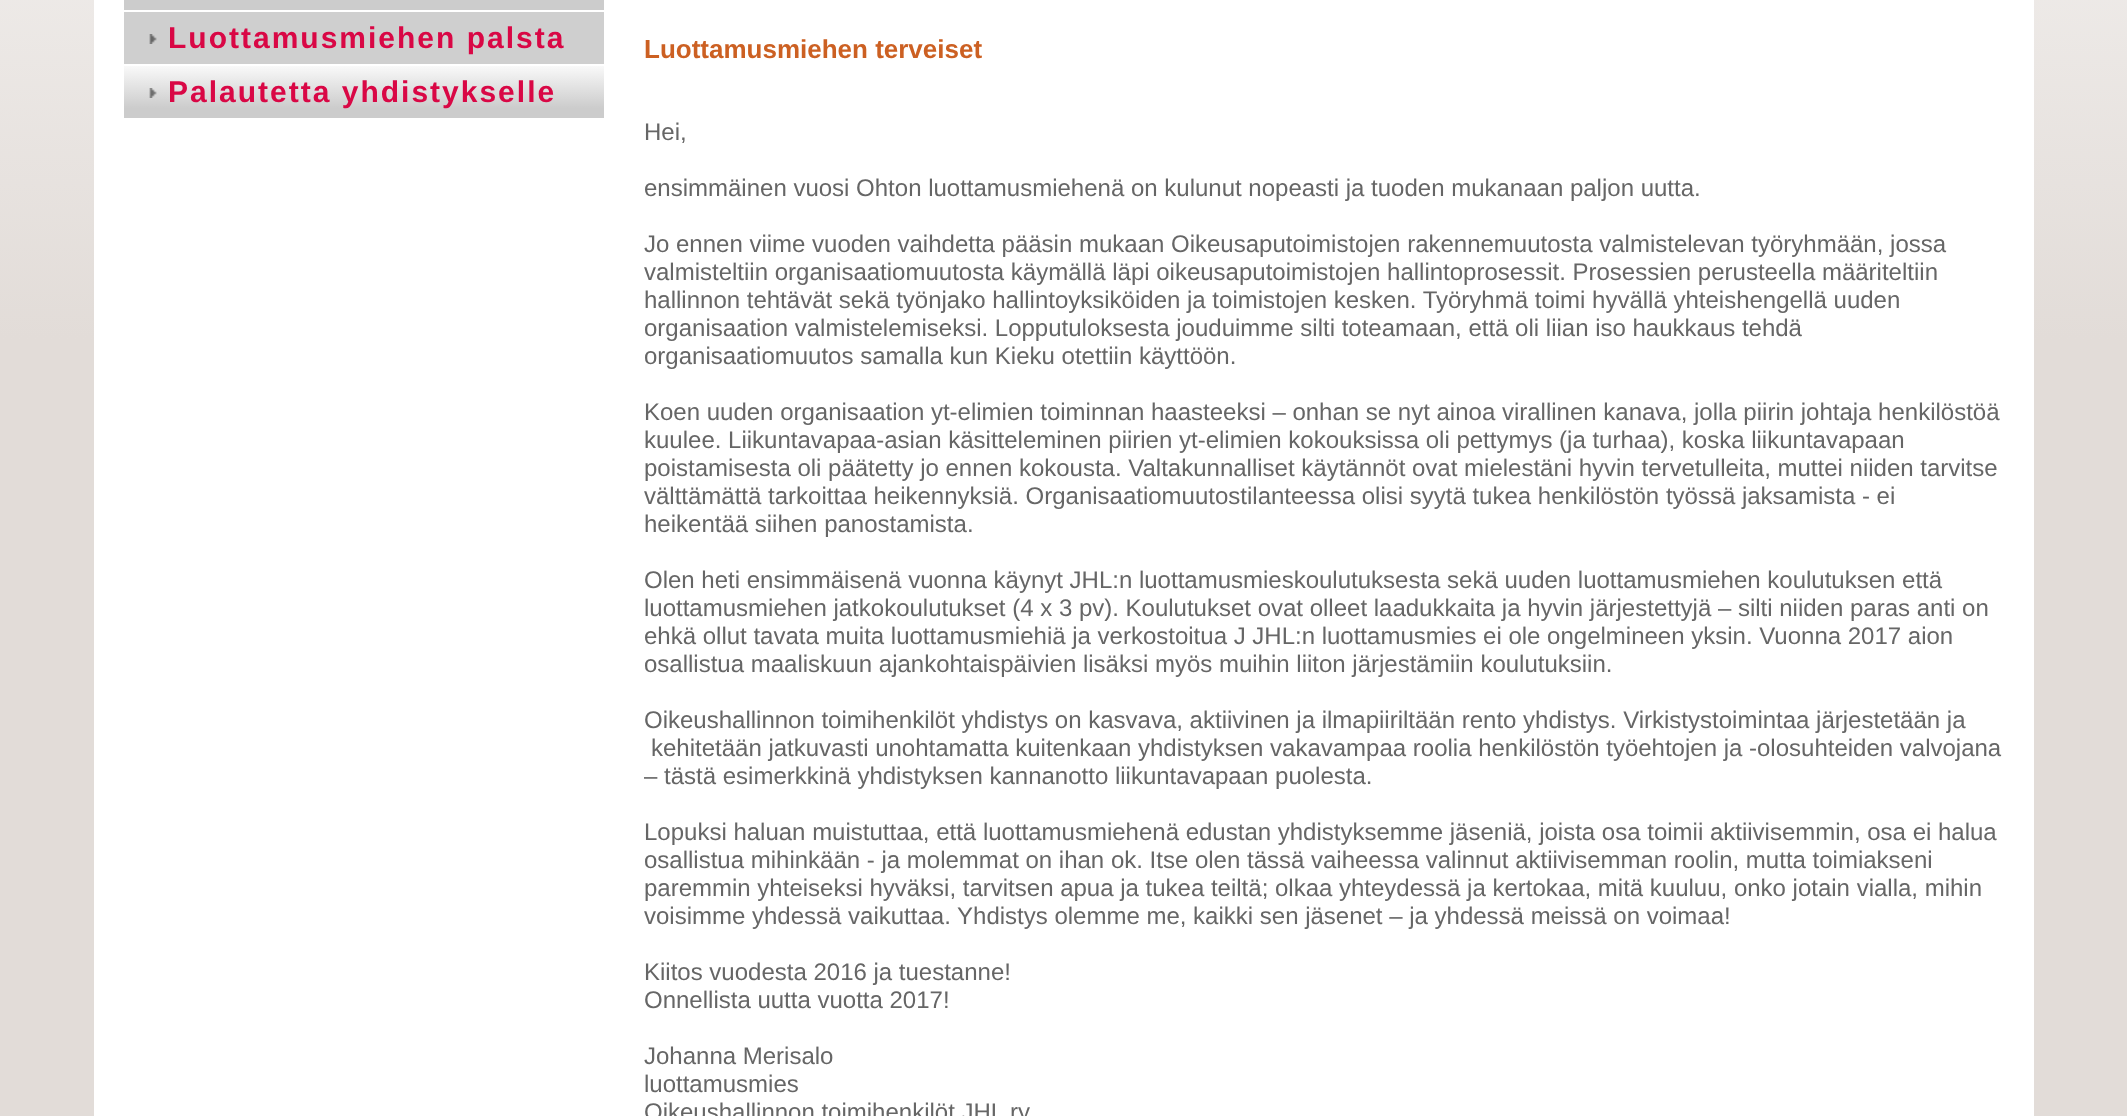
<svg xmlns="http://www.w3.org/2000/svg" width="2127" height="1116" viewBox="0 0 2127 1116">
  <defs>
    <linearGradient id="g1" gradientUnits="userSpaceOnUse" x1="1064" y1="-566" x2="1064" y2="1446"><stop offset="0" stop-color="rgb(255,255,255)"/><stop offset="0.45" stop-color="rgb(226,220,216)"/><stop offset="1" stop-color="rgb(226,220,216)"/></linearGradient>
    <linearGradient id="g2" gradientUnits="userSpaceOnUse" x1="364" y1="-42" x2="364" y2="10"><stop offset="0" stop-color="rgb(249,249,249)"/><stop offset="0.81" stop-color="rgb(204,204,204)"/><stop offset="1" stop-color="rgb(204,204,204)"/></linearGradient>
    <linearGradient id="g3" gradientUnits="userSpaceOnUse" x1="364" y1="66" x2="364" y2="118"><stop offset="0" stop-color="rgb(249,249,249)"/><stop offset="0.81" stop-color="rgb(204,204,204)"/><stop offset="1" stop-color="rgb(204,204,204)"/></linearGradient>
  </defs>
  <rect width="100%" height="100%" fill="rgb(255,255,255)"/>
  <rect x="0" y="0" width="2127" height="1116" fill="url(#g1)"/>
  <rect x="94" y="0" width="1940" height="1116" fill="rgb(255,255,255)"/>
  <rect x="124" y="0" width="480" height="10" fill="url(#g2)"/>
  <rect x="124" y="12" width="480" height="52" fill="rgb(207,207,207)"/>
  <image x="149" y="34" width="8" height="10" href="pic1.png"/>
  <text x="168" y="48" font-family="Liberation Sans" font-size="30" font-weight="bold" letter-spacing="2" fill="rgb(217,7,69)">Luottamusmiehen palsta</text>
  <rect x="124" y="66" width="480" height="52" fill="url(#g3)"/>
  <image x="149" y="88" width="8" height="10" href="pic2.png"/>
  <text x="168" y="102" font-family="Liberation Sans" font-size="30" font-weight="bold" letter-spacing="2" fill="rgb(217,7,69)">Palautetta yhdistykselle</text>
  <text x="644" y="58" font-family="Liberation Sans" font-size="26" font-weight="bold" fill="rgb(204,96,34)">Luottamusmiehen terveiset</text>
  <g font-family="Liberation Sans" font-size="24" fill="rgb(102,102,102)">
    <text x="644" y="140">Hei,</text>
    <text x="644" y="196">ensimmäinen vuosi Ohton luottamusmiehenä on kulunut nopeasti ja tuoden mukanaan paljon uutta.</text>
    <text>
      <tspan x="644" y="252">Jo ennen viime vuoden vaihdetta pääsin mukaan Oikeusaputoimistojen rakennemuutosta valmistelevan työryhmään, jossa</tspan>
      <tspan x="644" y="280">valmisteltiin organisaatiomuutosta käymällä läpi oikeusaputoimistojen hallintoprosessit. Prosessien perusteella määriteltiin</tspan>
      <tspan x="644" y="308">hallinnon tehtävät sekä työnjako hallintoyksiköiden ja toimistojen kesken. Työryhmä toimi hyvällä yhteishengellä uuden</tspan>
      <tspan x="644" y="336">organisaation valmistelemiseksi. Lopputuloksesta jouduimme silti toteamaan, että oli liian iso haukkaus tehdä</tspan>
      <tspan x="644" y="364">organisaatiomuutos samalla kun Kieku otettiin käyttöön.</tspan>
    </text>
    <text>
      <tspan x="644" y="420">Koen uuden organisaation yt-elimien toiminnan haasteeksi – onhan se nyt ainoa virallinen kanava, jolla piirin johtaja henkilöstöä</tspan>
      <tspan x="644" y="448">kuulee. Liikuntavapaa-asian käsitteleminen piirien yt-elimien kokouksissa oli pettymys (ja turhaa), koska liikuntavapaan</tspan>
      <tspan x="644" y="476">poistamisesta oli päätetty jo ennen kokousta. Valtakunnalliset käytännöt ovat mielestäni hyvin tervetulleita, muttei niiden tarvitse</tspan>
      <tspan x="644" y="504">välttämättä tarkoittaa heikennyksiä. Organisaatiomuutostilanteessa olisi syytä tukea henkilöstön työssä jaksamista - ei</tspan>
      <tspan x="644" y="532">heikentää siihen panostamista.</tspan>
    </text>
    <text>
      <tspan x="644" y="588">Olen heti ensimmäisenä vuonna käynyt JHL:n luottamusmieskoulutuksesta sekä uuden luottamusmiehen koulutuksen että</tspan>
      <tspan x="644" y="616">luottamusmiehen jatkokoulutukset (4 x 3 pv). Koulutukset ovat olleet laadukkaita ja hyvin järjestettyjä – silti niiden paras anti on</tspan>
      <tspan x="644" y="644">ehkä ollut tavata muita luottamusmiehiä ja verkostoitua J JHL:n luottamusmies ei ole ongelmineen yksin. Vuonna 2017 aion</tspan>
      <tspan x="644" y="672">osallistua maaliskuun ajankohtaispäivien lisäksi myös muihin liiton järjestämiin koulutuksiin.</tspan>
    </text>
    <text x="644" y="728">Oikeushallinnon toimihenkilöt yhdistys on kasvava, aktiivinen ja ilmapiiriltään rento yhdistys. Virkistystoimintaa järjestetään ja</text>
    <text x="651" y="756">kehitetään jatkuvasti unohtamatta kuitenkaan yhdistyksen vakavampaa roolia henkilöstön työehtojen ja -olosuhteiden valvojana</text>
    <text x="644" y="784">– tästä esimerkkinä yhdistyksen kannanotto liikuntavapaan puolesta.</text>
    <text>
      <tspan x="644" y="840">Lopuksi haluan muistuttaa, että luottamusmiehenä edustan yhdistyksemme jäseniä, joista osa toimii aktiivisemmin, osa ei halua</tspan>
      <tspan x="644" y="868">osallistua mihinkään - ja molemmat on ihan ok. Itse olen tässä vaiheessa valinnut aktiivisemman roolin, mutta toimiakseni</tspan>
      <tspan x="644" y="896">paremmin yhteiseksi hyväksi, tarvitsen apua ja tukea teiltä; olkaa yhteydessä ja kertokaa, mitä kuuluu, onko jotain vialla, mihin</tspan>
      <tspan x="644" y="924">voisimme yhdessä vaikuttaa. Yhdistys olemme me, kaikki sen jäsenet – ja yhdessä meissä on voimaa!</tspan>
    </text>
    <text>
      <tspan x="644" y="980">Kiitos vuodesta 2016 ja tuestanne!</tspan>
      <tspan x="644" y="1008">Onnellista uutta vuotta 2017!</tspan>
    </text>
    <text>
      <tspan x="644" y="1064">Johanna Merisalo</tspan>
      <tspan x="644" y="1092">luottamusmies</tspan>
      <tspan x="644" y="1120">Oikeushallinnon toimihenkilöt JHL ry</tspan>
    </text>
  </g>
</svg>
